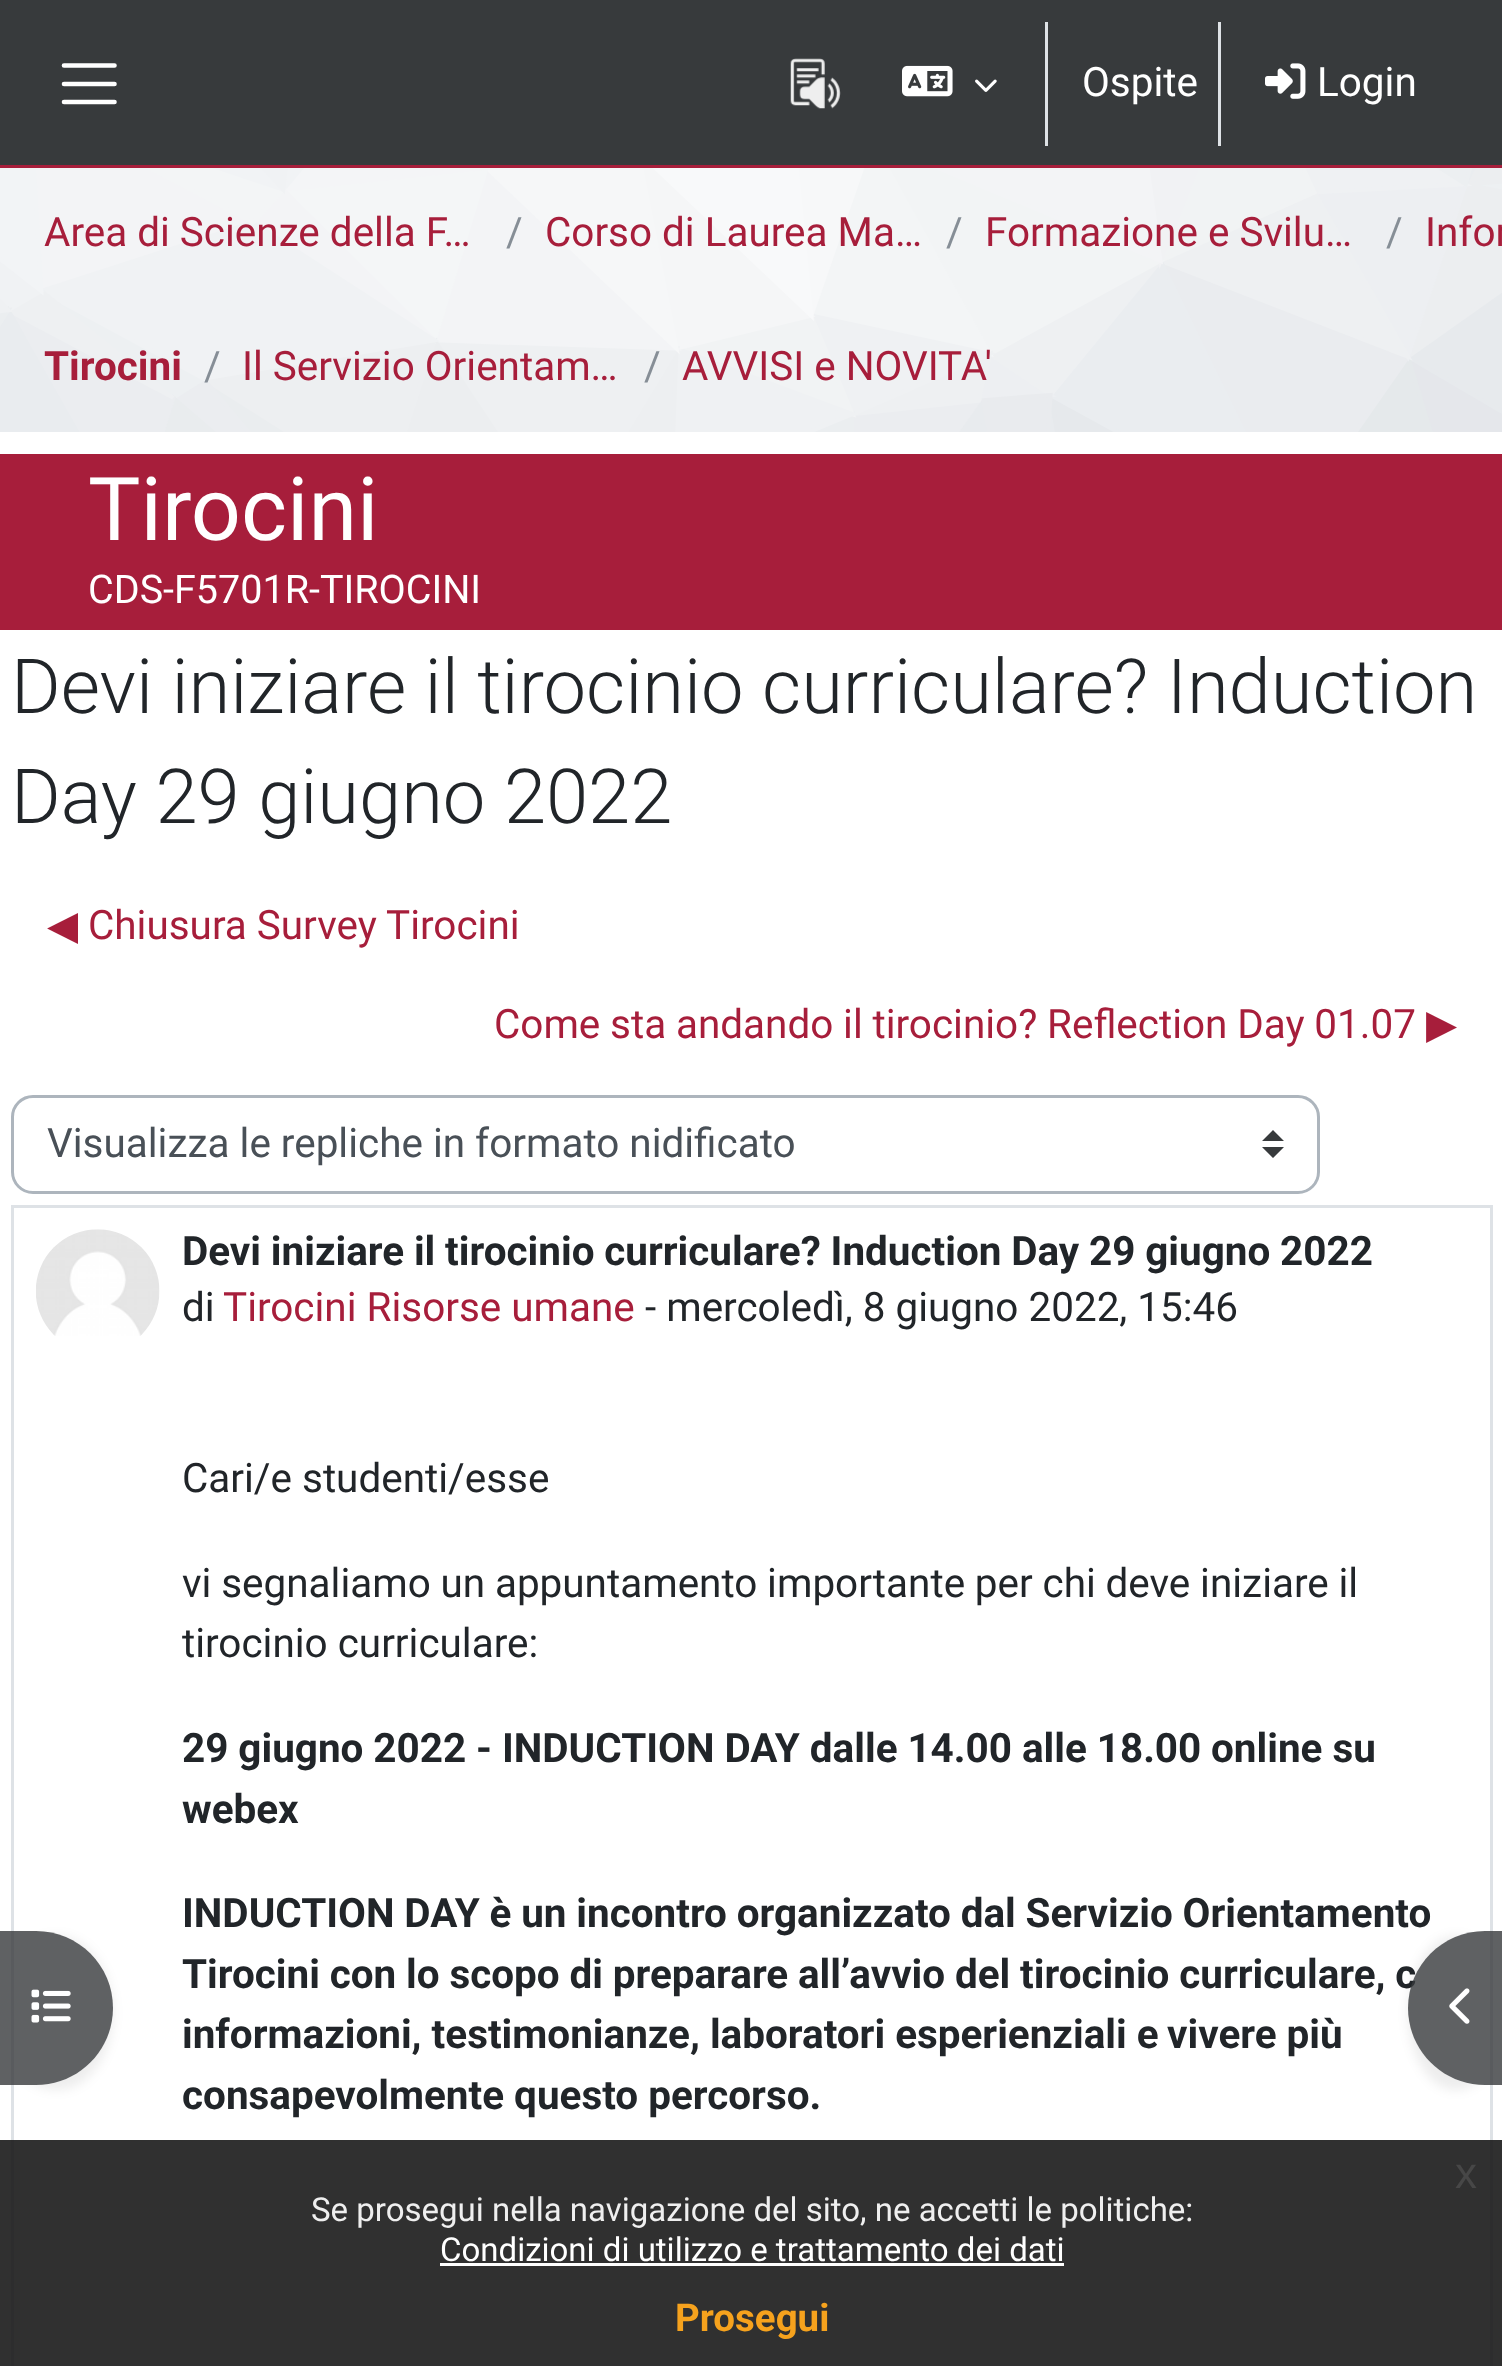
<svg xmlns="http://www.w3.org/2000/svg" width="1502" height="2366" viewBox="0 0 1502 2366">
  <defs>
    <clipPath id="clip1"><rect x="182" y="1405" width="1287" height="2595"/></clipPath>
    <clipPath id="clip2"><path d="M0 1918H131V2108H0ZM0 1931H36C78.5 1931 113 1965.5 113 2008C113 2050.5 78.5 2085 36 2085H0Z" clip-rule="evenodd"/></clipPath>
    <clipPath id="clip3"><path d="M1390 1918H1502V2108H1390ZM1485 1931H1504V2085H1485C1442.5 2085 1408 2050.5 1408 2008C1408 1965.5 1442.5 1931 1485 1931Z" clip-rule="evenodd"/></clipPath>
  </defs>
  <rect width="100%" height="100%" fill="rgb(255,255,255)"/>
  <rect x="0" y="0" width="1502" height="165" fill="rgb(55,58,60)"/>
  <rect x="0" y="165" width="1502" height="3" fill="rgb(167,30,59)"/>
  <path d="M64 65.5H114.5M64 84H114.5M64 102H114.5" fill="none" stroke="rgb(255,255,255)" stroke-width="4.6" stroke-linecap="round"/>
  <image x="790" y="58" width="51" height="51" href="pic1.png"/>
  <image x="902" y="65" width="51" height="32" href="pic2.png"/>
  <image x="975" y="79" width="22" height="13" href="pic3.png"/>
  <rect x="1045" y="22" width="3" height="124" fill="rgb(222,226,230)"/>
  <text x="1082" y="96" font-family="Roboto" font-size="40.45" fill="rgb(255,255,255)">Ospite</text>
  <rect x="1218" y="22" width="3" height="124" fill="rgb(222,226,230)"/>
  <image x="1265" y="63" width="41" height="36" href="pic4.png"/>
  <text x="1317" y="96" font-family="Roboto" font-size="40.45" fill="rgb(255,255,255)">Login</text>
  <image x="0" y="168" width="1502" height="264" href="pic5.png"/>
  <text x="44" y="246" font-family="Roboto" font-size="40.45" fill="rgb(167,30,59)">Area di Scienze della F…</text>
  <text x="506" y="246" font-family="Roboto" font-size="40.45" fill="rgb(134,142,150)">/</text>
  <text x="545" y="246" font-family="Roboto" font-size="40.45" fill="rgb(167,30,59)">Corso di Laurea Ma…</text>
  <text x="946" y="246" font-family="Roboto" font-size="40.45" fill="rgb(134,142,150)">/</text>
  <text x="985" y="246" font-family="Roboto" font-size="40.45" fill="rgb(167,30,59)">Formazione e Svilu…</text>
  <text x="1386" y="246" font-family="Roboto" font-size="40.45" fill="rgb(134,142,150)">/</text>
  <text x="1425" y="246" font-family="Roboto" font-size="40.45" fill="rgb(167,30,59)">Infor</text>
  <text x="44" y="380" font-family="Roboto" font-size="40.45" font-weight="bold" fill="rgb(167,30,59)">Tirocini</text>
  <text x="204" y="380" font-family="Roboto" font-size="40.45" fill="rgb(134,142,150)">/</text>
  <text x="242" y="380" font-family="Roboto" font-size="40.45" fill="rgb(167,30,59)">Il Servizio Orientam…</text>
  <text x="644" y="380" font-family="Roboto" font-size="40.45" fill="rgb(134,142,150)">/</text>
  <text x="682" y="380" font-family="Roboto" font-size="40.45" fill="rgb(167,30,59)">AVVISI e NOVITA'</text>
  <rect x="0" y="454" width="1502" height="176" fill="rgb(167,30,59)"/>
  <text x="88" y="540" font-family="Roboto" font-size="88" fill="rgb(255,255,255)">Tirocini</text>
  <text x="88" y="603" font-family="Roboto" font-size="39.5" fill="rgb(255,255,255)">CDS-F5701R-TIROCINI</text>
  <g font-family="Roboto" font-size="75.9" font-weight="300" fill="rgb(33,37,41)">
    <text>
      <tspan x="11" y="713">Devi iniziare il tirocinio curriculare? Induction</tspan>
      <tspan x="11" y="823">Day 29 giugno 2022</tspan>
    </text>
  </g>
  <text x="47" y="939" font-family="DejaVu Sans" font-size="40.45" fill="rgb(167,30,59)">◀︎</text>
  <g font-family="Roboto" font-size="40.45" fill="rgb(167,30,59)">
    <text x="88" y="939">Chiusura Survey Tirocini</text>
    <text x="494" y="1038" word-spacing="-0.25">Come sta andando il tirocinio? Reflection Day 01.07</text>
  </g>
  <text x="1426" y="1038" font-family="DejaVu Sans" font-size="40.45" fill="rgb(167,30,59)">▶︎</text>
  <path d="M1273 1130L1262 1141H1284ZM1273 1158L1262 1147H1284Z" fill="rgb(55,58,60)"/>
  <rect x="12.5" y="1096.5" width="1306" height="96" rx="20.5" fill="none" stroke="rgb(173,181,189)" stroke-width="3"/>
  <text x="47" y="1157" font-family="Roboto" font-size="40.45" fill="rgb(73,80,87)">Visualizza le repliche in formato nidificato</text>
  <rect x="12.5" y="1206.5" width="1479" height="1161" fill="none" stroke="rgb(222,226,230)" stroke-width="3"/>
  <image x="36" y="1229" width="124" height="107" href="pic6.png"/>
  <text x="182" y="1265" word-spacing="-0.25" font-family="Roboto" font-size="40.45" font-weight="bold" fill="rgb(33,37,41)">Devi iniziare il tirocinio curriculare? Induction Day 29 giugno 2022</text>
  <text x="182" y="1321" font-family="Roboto" font-size="40.45" fill="rgb(33,37,41)">di</text>
  <text x="223" y="1321" font-family="Roboto" font-size="40.45" fill="rgb(167,30,59)">Tirocini Risorse umane</text>
  <g font-family="Roboto" font-size="40.45" fill="rgb(33,37,41)">
    <text x="645" y="1321">- mercoledì, 8 giugno 2022, 15:46</text>
    <text x="182" y="1492">Cari/e studenti/esse</text>
    <text x="182" y="1597" word-spacing="-0.25">vi segnaliamo un appuntamento importante per chi deve iniziare il</text>
  </g>
  <g clip-path="url(#clip1)">
    <text x="182" y="1657" font-family="Roboto" font-size="40.45" fill="rgb(33,37,41)">tirocinio curriculare:</text>
  </g>
  <g font-family="Roboto" font-size="40.45" font-weight="bold" fill="rgb(33,37,41)">
    <text x="182" y="1762" word-spacing="-0.1">29 giugno 2022 - INDUCTION DAY dalle 14.00 alle 18.00</text>
    <text x="1211" y="1762">online su</text>
    <text x="182" y="1823">webex</text>
    <text>
      <tspan x="182" y="1927" word-spacing="-0.25">INDUCTION DAY è un incontro organizzato dal Servizio Orientamento</tspan>
      <tspan x="182" y="1988" word-spacing="-0.25">Tirocini con lo scopo di preparare all’avvio del tirocinio curriculare, c</tspan>
      <tspan x="182" y="2048">informazioni, testimonianze, laboratori esperienziali e</tspan>
    </text>
    <text x="1167" y="2048">vivere più</text>
    <text x="182" y="2109">consapevolmente questo percorso.</text>
  </g>
  <g clip-path="url(#clip2)">
    <rect x="0" y="1936" width="113" height="154" rx="77" fill="rgba(0,0,0,0.07)" filter="blur(5.5px)"/>
  </g>
  <path d="M0 1931H36C78.5 1931 113 1965.5 113 2008C113 2050.5 78.5 2085 36 2085H0Z" fill="rgba(55,58,60,0.8)"/>
  <image x="31" y="1989" width="40" height="34" href="pic7.png"/>
  <g clip-path="url(#clip3)">
    <rect x="1408" y="1936" width="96" height="154" rx="77" fill="rgba(0,0,0,0.07)" filter="blur(5.5px)"/>
  </g>
  <path d="M1485 1931H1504V2085H1485C1442.5 2085 1408 2050.5 1408 2008C1408 1965.5 1442.5 1931 1485 1931Z" fill="rgba(55,58,60,0.8)"/>
  <image x="1449" y="1988" width="21" height="36" href="pic8.png"/>
  <rect x="0" y="2140" width="1502" height="226" fill="rgba(25,25,25,0.9)"/>
  <text x="1455" y="2188" font-family="Liberation Sans" font-size="44" fill="rgb(71,71,71)">x</text>
  <text x="311" y="2221" font-family="Roboto" font-size="33" fill="rgb(239,239,239)">Se prosegui nella navigazione del sito, ne accetti le politiche:</text>
  <text x="440" y="2261" font-family="Roboto" font-size="33" fill="rgb(255,255,255)">Condizioni di utilizzo e trattamento dei dati</text>
  <rect x="440" y="2263" width="624" height="3" fill="rgb(255,255,255)"/>
  <text x="675" y="2331" font-family="Roboto" font-size="38.5" font-weight="bold" fill="rgb(246,162,29)">Prosegui</text>
</svg>
